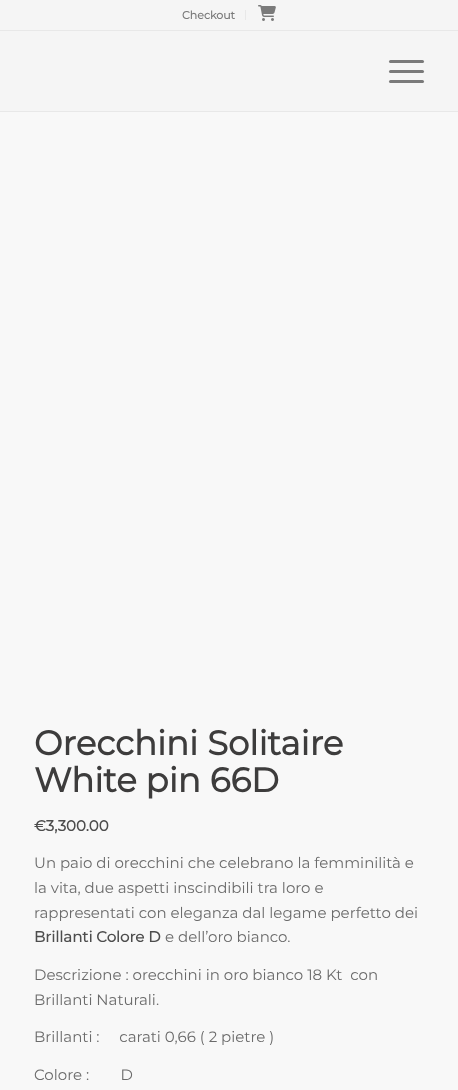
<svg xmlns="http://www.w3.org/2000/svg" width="458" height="1090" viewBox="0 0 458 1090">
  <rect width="100%" height="100%" fill="rgb(248,248,248)"/>
  <rect x="0" y="0" width="458" height="30" fill="rgb(245,245,245)"/>
  <rect x="0" y="30" width="458" height="1" fill="rgb(232,232,232)"/>
  <rect x="245" y="10" width="1" height="10" fill="rgb(232,232,232)"/>
  <text x="182" y="19" font-family="Montserrat" font-size="11" font-weight="bold" fill="rgb(122,122,122)">Checkout</text>
  <image x="258" y="5" width="18" height="16" href="pic1.png"/>
  <rect x="0" y="31" width="458" height="80" fill="rgb(245,245,245)"/>
  <rect x="0" y="111" width="458" height="1" fill="rgb(232,232,232)"/>
  <rect x="389" y="70" width="35" height="3" rx="1.5" fill="rgb(122,122,122)"/>
  <rect x="389" y="60" width="35" height="3" rx="1.5" fill="rgb(122,122,122)"/>
  <rect x="389" y="80" width="35" height="3" rx="1.5" fill="rgb(122,122,122)"/>
  <g font-family="Montserrat" font-size="34" font-weight="bold" fill="rgb(61,60,60)">
    <text>
      <tspan x="34" y="755">Orecchini Solitaire</tspan>
      <tspan x="34" y="792">White pin 66D</tspan>
    </text>
  </g>
  <text x="34" y="831" font-family="Montserrat" font-size="15" font-weight="bold" fill="rgb(77,77,77)">€3,300.00</text>
  <g font-family="Montserrat" font-size="15" font-weight="100" fill="rgb(107,107,107)">
    <text>
      <tspan x="34" y="868">Un paio di orecchini che celebrano la femminilità e</tspan>
      <tspan x="34" y="893">la vita, due aspetti inscindibili tra loro e</tspan>
      <tspan x="34" y="918">rappresentati con eleganza dal legame perfetto dei</tspan>
    </text>
  </g>
  <text x="34" y="942" font-family="Montserrat" font-size="15" font-weight="bold" fill="rgb(77,77,77)">Brillanti Colore D</text>
  <g font-family="Montserrat" font-size="15" font-weight="100" fill="rgb(107,107,107)">
    <text x="165" y="942">e dell’oro bianco.</text>
    <text xml:space="preserve"><tspan x="34" y="980">Descrizione : orecchini in oro bianco 18 Kt  con</tspan><tspan x="34" y="1005">Brillanti Naturali.</tspan></text>
    <text x="34" y="1042" xml:space="preserve">Brillanti :     carati 0,66 ( 2 pietre )</text>
    <text x="34" y="1080" xml:space="preserve">Colore :        D</text>
  </g>
</svg>
